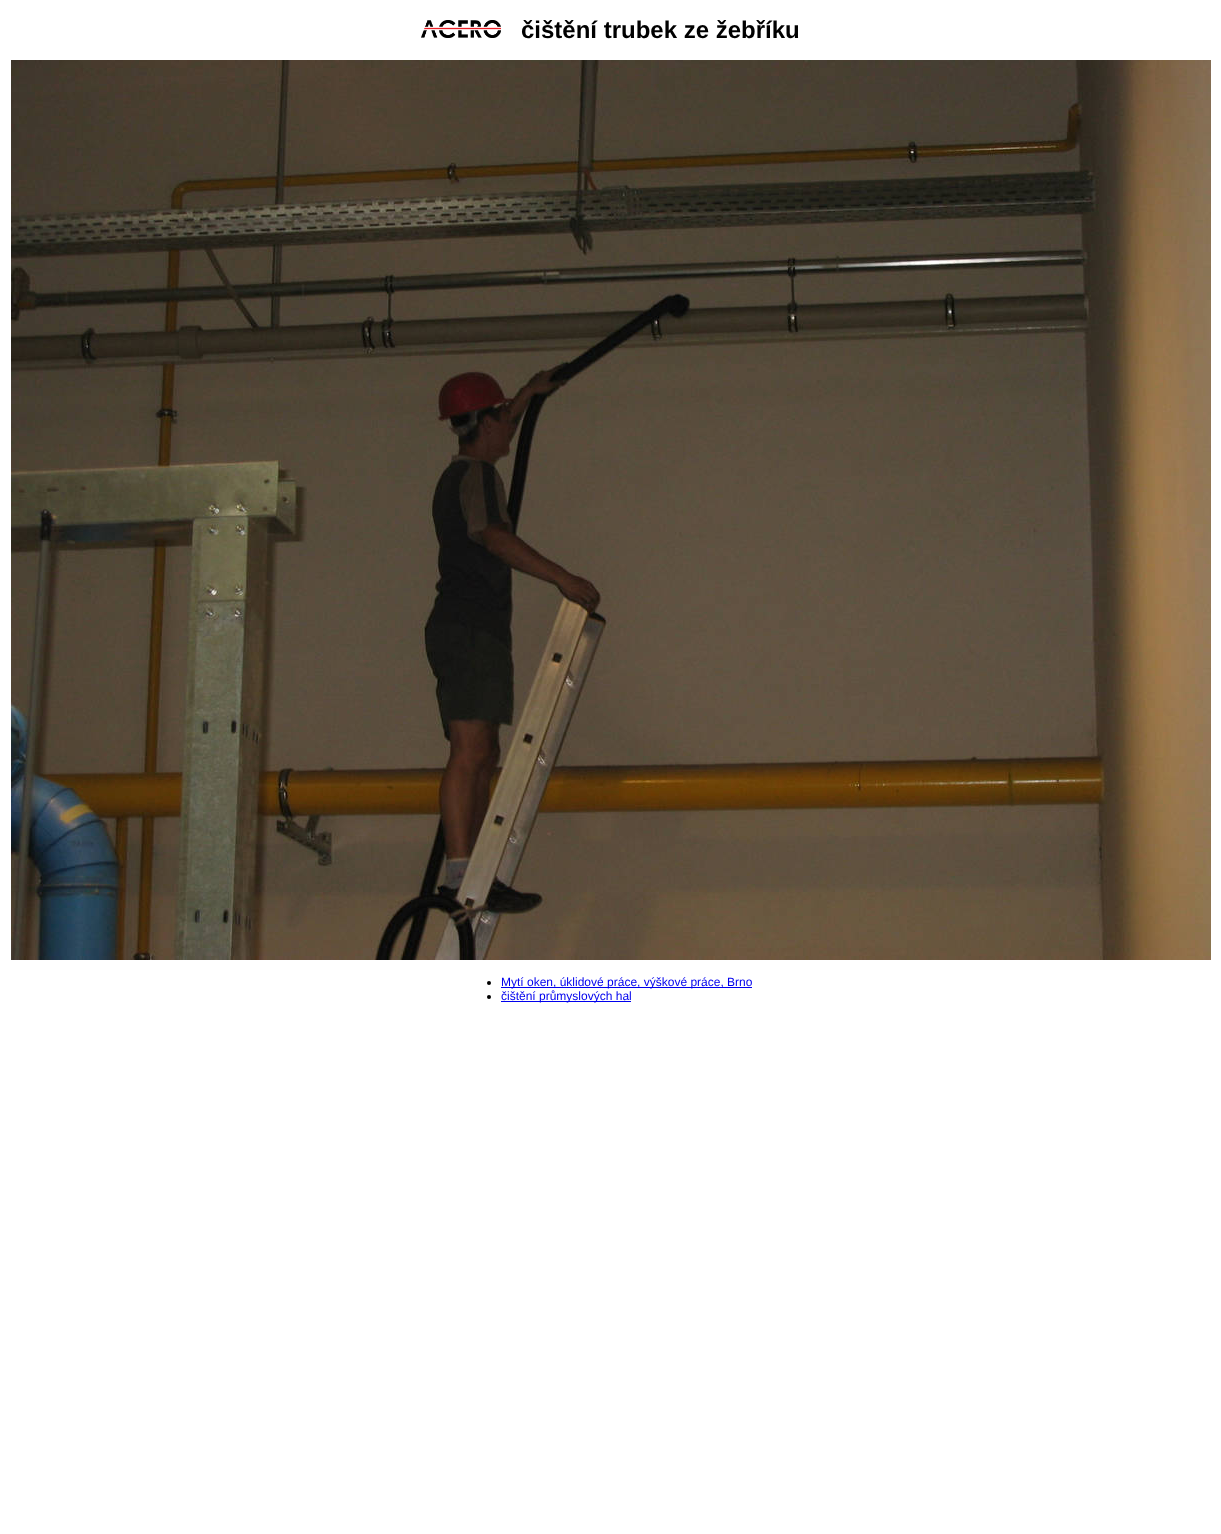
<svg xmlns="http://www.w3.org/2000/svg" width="1221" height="1534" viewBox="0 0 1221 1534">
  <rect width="100%" height="100%" fill="rgb(255,255,255)"/>
  <image x="421" y="20" width="80" height="18" href="pic1.png"/>
  <text x="521" y="38" font-family="Liberation Sans" font-size="24" font-weight="bold" fill="rgb(0,0,0)">čištění trubek ze žebříku</text>
  <image x="11" y="60" width="1200" height="900" href="pic2.png"/>
  <circle cx="489" cy="983" r="2" fill="rgb(0,0,0)"/>
  <rect x="501" y="987" width="251" height="1" fill="rgb(0,0,238)"/>
  <text x="501" y="986" font-family="Liberation Sans" font-size="12" fill="rgb(0,0,238)">Mytí oken, úklidové práce, výškové práce, Brno</text>
  <circle cx="489" cy="997" r="2" fill="rgb(0,0,0)"/>
  <rect x="501" y="1001" width="130" height="1" fill="rgb(0,0,238)"/>
  <text x="501" y="1000" font-family="Liberation Sans" font-size="12" fill="rgb(0,0,238)">čištění průmyslových hal</text>
</svg>
